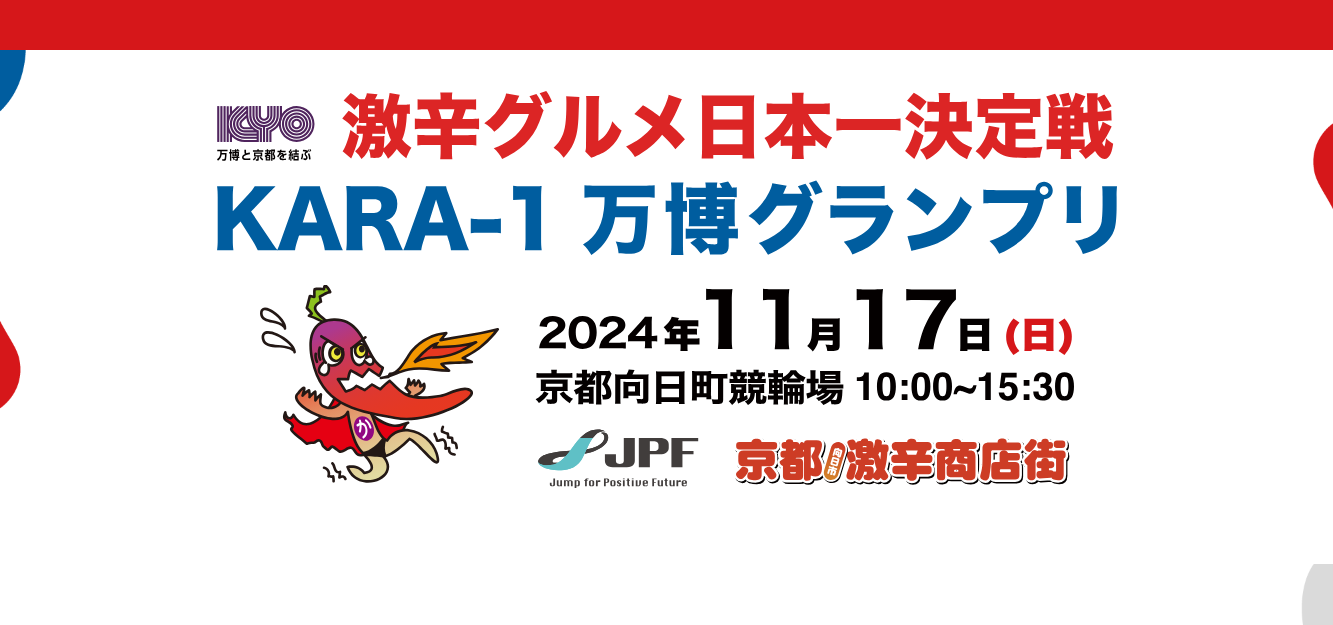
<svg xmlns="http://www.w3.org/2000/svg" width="1333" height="625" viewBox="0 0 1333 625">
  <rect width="100%" height="100%" fill="rgb(255,255,255)"/>
  <image x="0" y="50" width="1333" height="575" href="pic1.png"/>
  <rect x="0" y="0" width="1333" height="50" fill="rgb(214,23,26)"/>
  <image x="217" y="91" width="900" height="164" href="pic2.png"/>
  <image x="260" y="285" width="814" height="203" href="pic3.png"/>
  <rect x="1313" y="549" width="20" height="15" fill="rgb(255,255,255)"/>
</svg>
